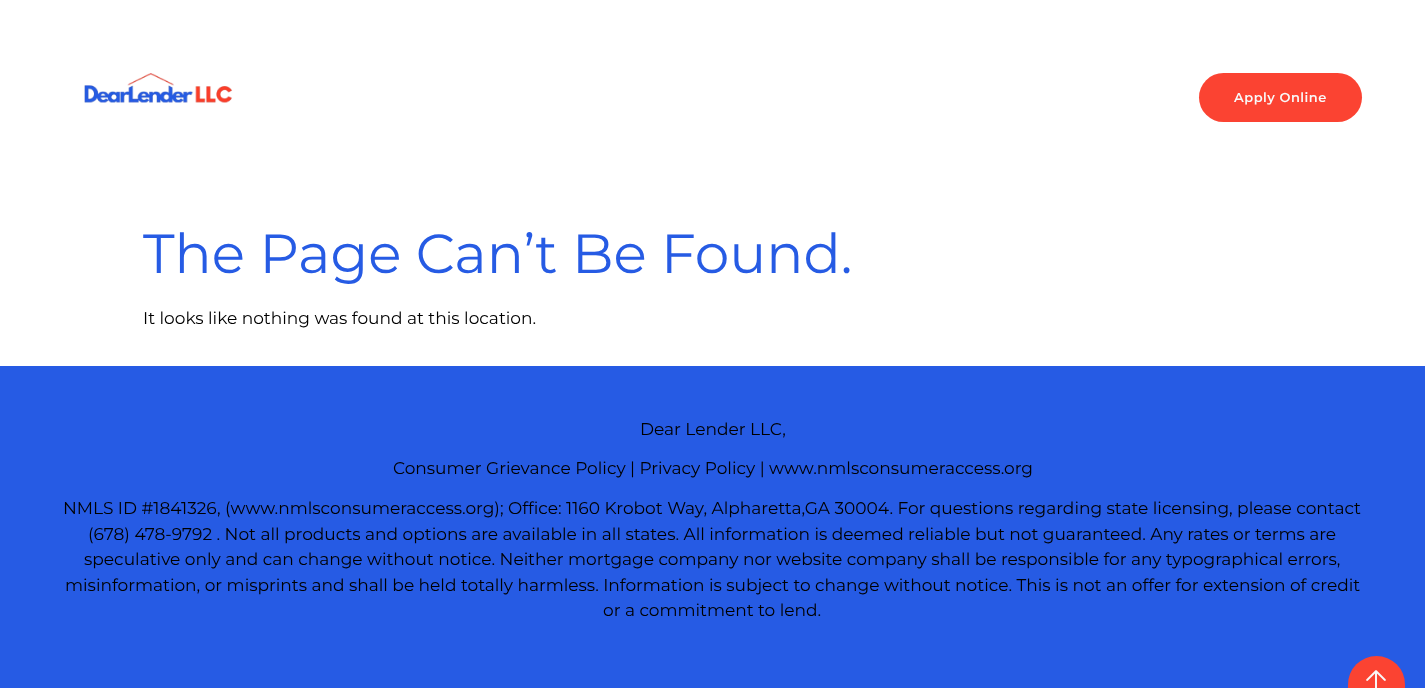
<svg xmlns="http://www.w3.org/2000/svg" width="1425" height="688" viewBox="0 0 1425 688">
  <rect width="100%" height="100%" fill="rgb(255,255,255)"/>
  <image x="84" y="73" width="149" height="30" href="pic1.png"/>
  <rect x="1199" y="73" width="163" height="49" rx="24.5" fill="rgb(251,67,50)"/>
  <text x="1234" y="102" font-family="Montserrat" font-size="13" font-weight="600" letter-spacing="0.5" fill="rgb(249,249,249)">Apply Online</text>
  <text x="143" y="273" font-family="Montserrat" font-size="55" fill="rgb(38,91,228)">The Page Can’t Be Found.</text>
  <text x="143" y="324" font-family="Montserrat" font-size="17" fill="rgb(0,0,0)">It looks like nothing was found at this location.</text>
  <rect x="0" y="366" width="1425" height="322" fill="rgb(38,91,228)"/>
  <g font-family="Montserrat" font-size="17" fill="rgb(0,0,0)">
    <text x="640" y="435">Dear Lender LLC,</text>
    <text x="393" y="474">Consumer Grievance Policy | Privacy Policy | www.nmlsconsumeraccess.org</text>
    <text x="63" y="514">NMLS ID #1841326, (www.nmlsconsumeraccess.org); Office: 1160 Krobot Way, Alpharetta,GA 30004. For questions regarding state licensing, please contact</text>
    <text x="88" y="540">(678) 478-9792 . Not all products and options are available in all states. All information is deemed reliable but not guaranteed. Any rates or terms are</text>
    <text x="84" y="565">speculative only and can change without notice. Neither mortgage company nor website company shall be responsible for any typographical errors,</text>
    <text x="65" y="591">misinformation, or misprints and shall be held totally harmless. Information is subject to change without notice. This is not an offer for extension of credit</text>
    <text x="603" y="616">or a commitment to lend.</text>
  </g>
  <rect x="1348" y="656" width="57" height="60" rx="28.5" fill="rgb(251,67,50)"/>
  <image x="1366" y="670" width="20" height="18" href="pic2.png"/>
</svg>
